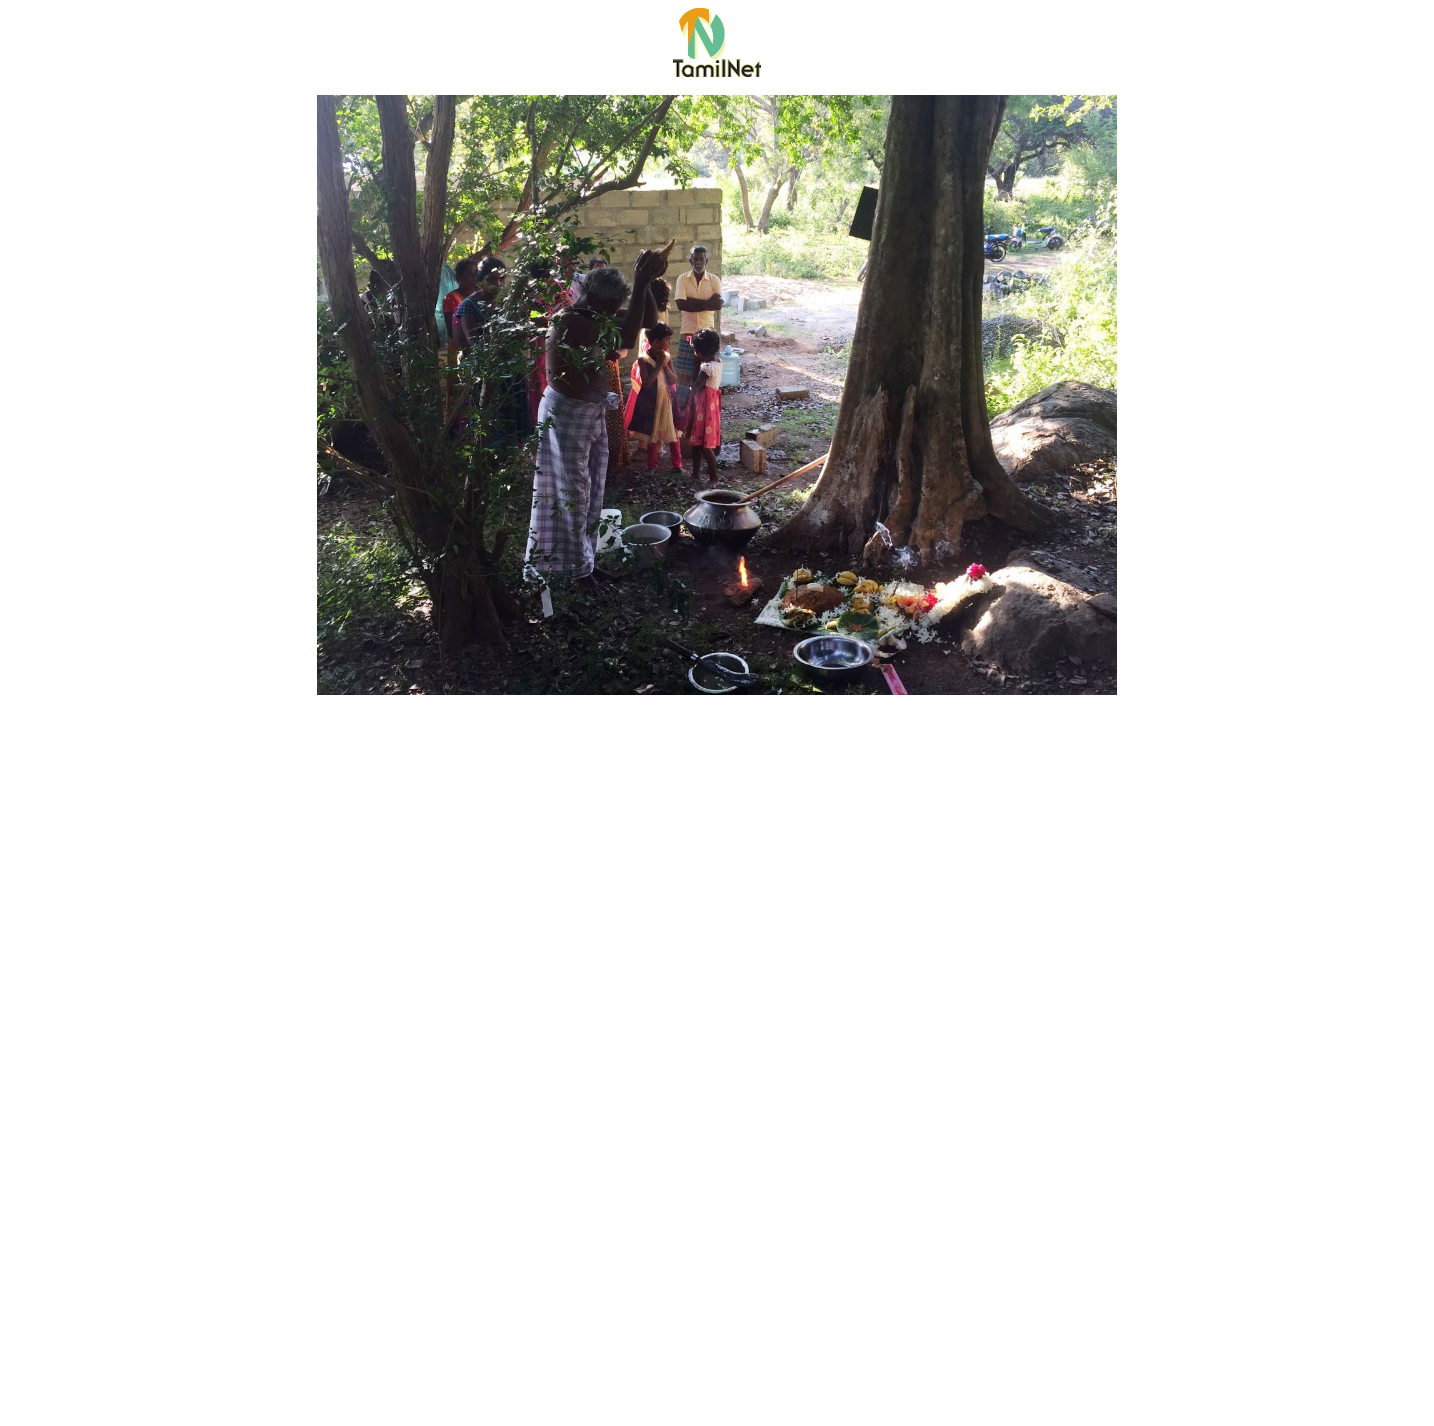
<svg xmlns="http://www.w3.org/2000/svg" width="1434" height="1426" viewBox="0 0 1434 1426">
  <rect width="100%" height="100%" fill="rgb(255,255,255)"/>
  <image x="673" y="8" width="88" height="69" href="pic1.png"/>
  <image x="317" y="95" width="800" height="600" href="pic2.png"/>
</svg>
